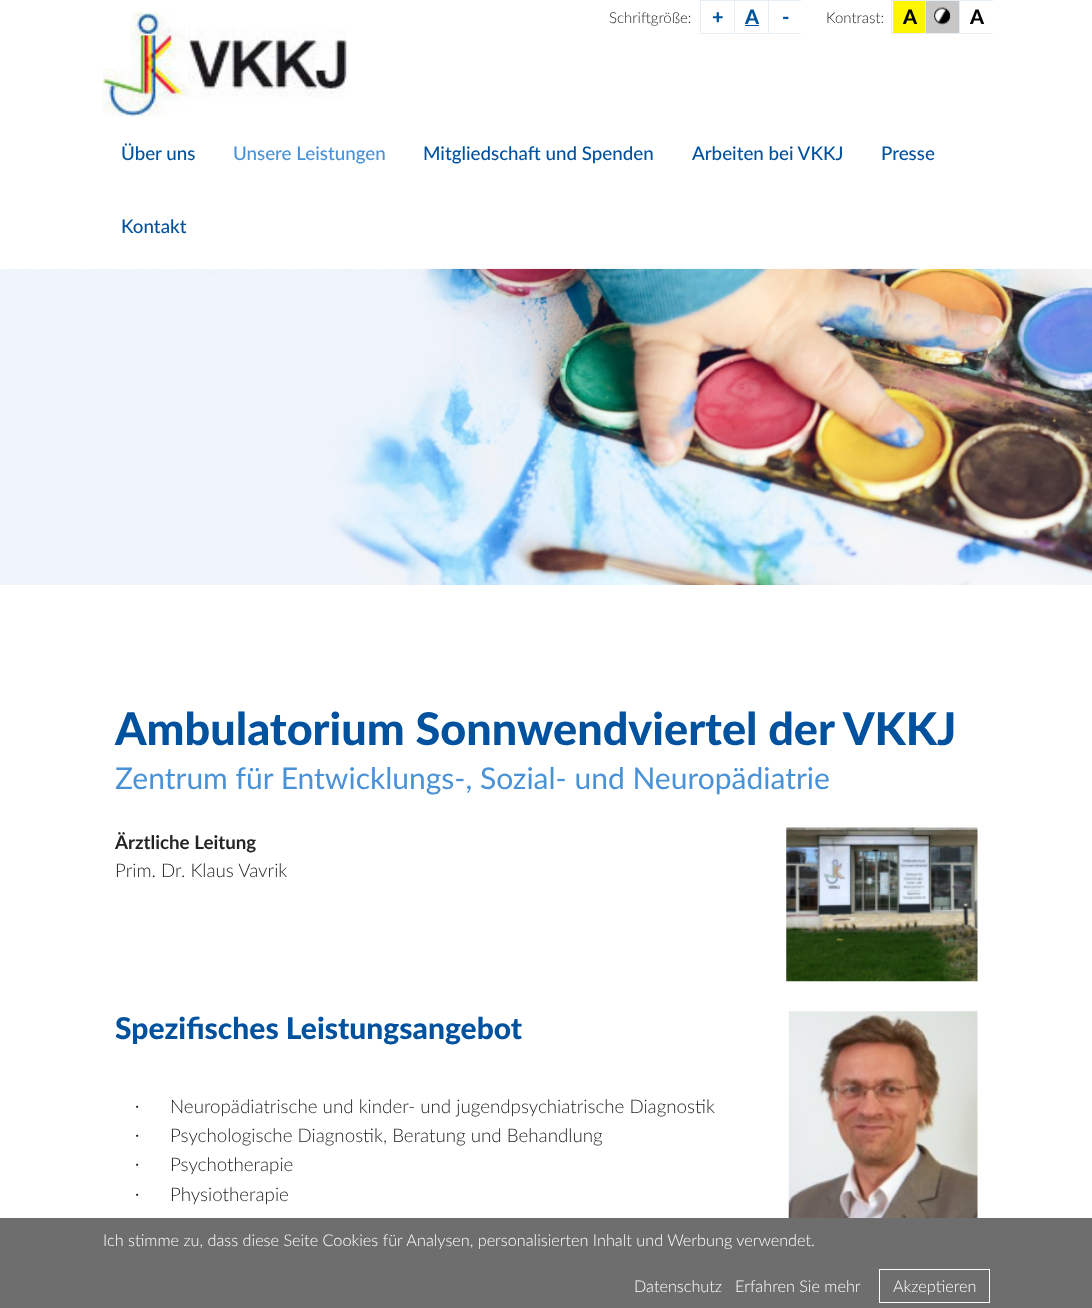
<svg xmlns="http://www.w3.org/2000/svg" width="1092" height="1308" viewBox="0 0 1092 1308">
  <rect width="100%" height="100%" fill="rgb(255,255,255)"/>
  <image x="102" y="12" width="245" height="105" href="pic1.png"/>
  <text x="609" y="23" font-family="Lato" font-size="15" font-weight="300" fill="rgb(36,36,36)">Schriftgröße:</text>
  <rect x="700" y="0" width="101" height="1" fill="rgb(229,237,245)"/>
  <rect x="700" y="33" width="101" height="1" fill="rgb(229,237,245)"/>
  <rect x="700" y="0" width="1" height="34" fill="rgb(229,237,245)"/>
  <text x="712" y="24" font-family="Lato" font-size="20" font-weight="900" fill="rgb(0,81,158)">+</text>
  <rect x="734" y="0" width="1" height="34" fill="rgb(229,237,245)"/>
  <rect x="745" y="25" width="14" height="1" fill="rgb(0,81,158)"/>
  <text x="745" y="24" font-family="Lato" font-size="20" font-weight="900" fill="rgb(0,81,158)">A</text>
  <rect x="768" y="0" width="1" height="34" fill="rgb(229,237,245)"/>
  <text x="782" y="24" font-family="Lato" font-size="20" font-weight="900" fill="rgb(0,81,158)">-</text>
  <text x="826" y="23" font-family="Lato" font-size="15" font-weight="300" fill="rgb(36,36,36)">Kontrast:</text>
  <rect x="891" y="0" width="102" height="1" fill="rgb(229,237,245)"/>
  <rect x="891" y="33" width="102" height="1" fill="rgb(229,237,245)"/>
  <rect x="891" y="0" width="1" height="34" fill="rgb(229,237,245)"/>
  <rect x="893" y="1" width="32" height="32" fill="rgb(254,245,0)"/>
  <text x="903" y="24" font-family="Lato" font-size="20" font-weight="900" fill="rgb(0,0,0)">A</text>
  <rect x="926" y="1" width="33" height="32" fill="rgb(199,199,199)"/>
  <rect x="925" y="0" width="1" height="34" fill="rgb(229,237,245)"/>
  <image x="934" y="7" width="17" height="18" href="pic2.png"/>
  <rect x="959" y="0" width="1" height="34" fill="rgb(229,237,245)"/>
  <text x="970" y="24" font-family="Lato" font-size="20" font-weight="900" fill="rgb(0,0,0)">A</text>
  <text x="121" y="160" font-family="Lato" font-size="18.75" font-weight="500" fill="rgb(0,81,158)">Über uns</text>
  <text x="233" y="160" font-family="Lato" font-size="18.75" font-weight="500" fill="rgb(73,146,215)">Unsere Leistungen</text>
  <g font-family="Lato" font-size="18.75" font-weight="500" fill="rgb(0,81,158)">
    <text x="423" y="160">Mitgliedschaft und Spenden</text>
    <text x="692" y="160">Arbeiten bei VKKJ</text>
    <text x="881" y="160">Presse</text>
    <text x="121" y="233">Kontakt</text>
  </g>
  <image x="0" y="268" width="1092" height="317" href="pic3.png"/>
  <text x="115" y="745" font-family="Lato" font-size="45" font-weight="900" fill="rgb(0,81,158)">Ambulatorium Sonnwendviertel der VKKJ</text>
  <text x="115" y="789" font-family="Lato" font-size="30" fill="rgb(73,146,215)">Zentrum für Entwicklungs-, Sozial- und Neuropädiatrie</text>
  <text x="115" y="849" font-family="Lato" font-size="18.75" font-weight="bold" fill="rgb(36,36,36)">Ärztliche Leitung</text>
  <text x="115" y="877" font-family="Lato" font-size="18.75" font-weight="300" fill="rgb(36,36,36)">Prim. Dr. Klaus Vavrik</text>
  <text x="115" y="1039" font-family="Lato" font-size="30" font-weight="900" fill="rgb(0,81,158)">Spezifisches Leistungsangebot</text>
  <text x="134" y="1113" font-family="Liberation Serif" font-size="18.75" fill="rgb(36,36,36)">·</text>
  <text x="170" y="1113" font-family="Lato" font-size="18.75" font-weight="300" fill="rgb(36,36,36)">Neuropädiatrische und kinder- und jugendpsychiatrische Diagnostik</text>
  <text x="134" y="1142" font-family="Liberation Serif" font-size="18.75" fill="rgb(36,36,36)">·</text>
  <text x="170" y="1142" font-family="Lato" font-size="18.75" font-weight="300" fill="rgb(36,36,36)">Psychologische Diagnostik, Beratung und Behandlung</text>
  <text x="134" y="1171" font-family="Liberation Serif" font-size="18.75" fill="rgb(36,36,36)">·</text>
  <text x="170" y="1171" font-family="Lato" font-size="18.75" font-weight="300" fill="rgb(36,36,36)">Psychotherapie</text>
  <text x="134" y="1201" font-family="Liberation Serif" font-size="18.75" fill="rgb(36,36,36)">·</text>
  <text x="170" y="1201" font-family="Lato" font-size="18.75" font-weight="300" fill="rgb(36,36,36)">Physiotherapie</text>
  <image x="786" y="827" width="192" height="155" href="pic4.png"/>
  <image x="788" y="1011" width="190" height="207" href="pic5.png"/>
  <rect x="0" y="1218" width="1092" height="90" fill="rgb(110,110,110)"/>
  <g font-family="Lato" font-size="16.25" font-weight="300" fill="rgb(255,255,255)">
    <text x="103" y="1246">Ich stimme zu, dass diese Seite Cookies für Analysen, personalisierten Inhalt und Werbung verwendet.</text>
    <text x="634" y="1292">Datenschutz</text>
    <text x="735" y="1292">Erfahren Sie mehr</text>
  </g>
  <rect x="879.5" y="1269.5" width="110" height="33" fill="none" stroke="rgb(255,255,255)"/>
  <text x="893" y="1292" font-family="Lato" font-size="16.25" font-weight="300" fill="rgb(255,255,255)">Akzeptieren</text>
</svg>
